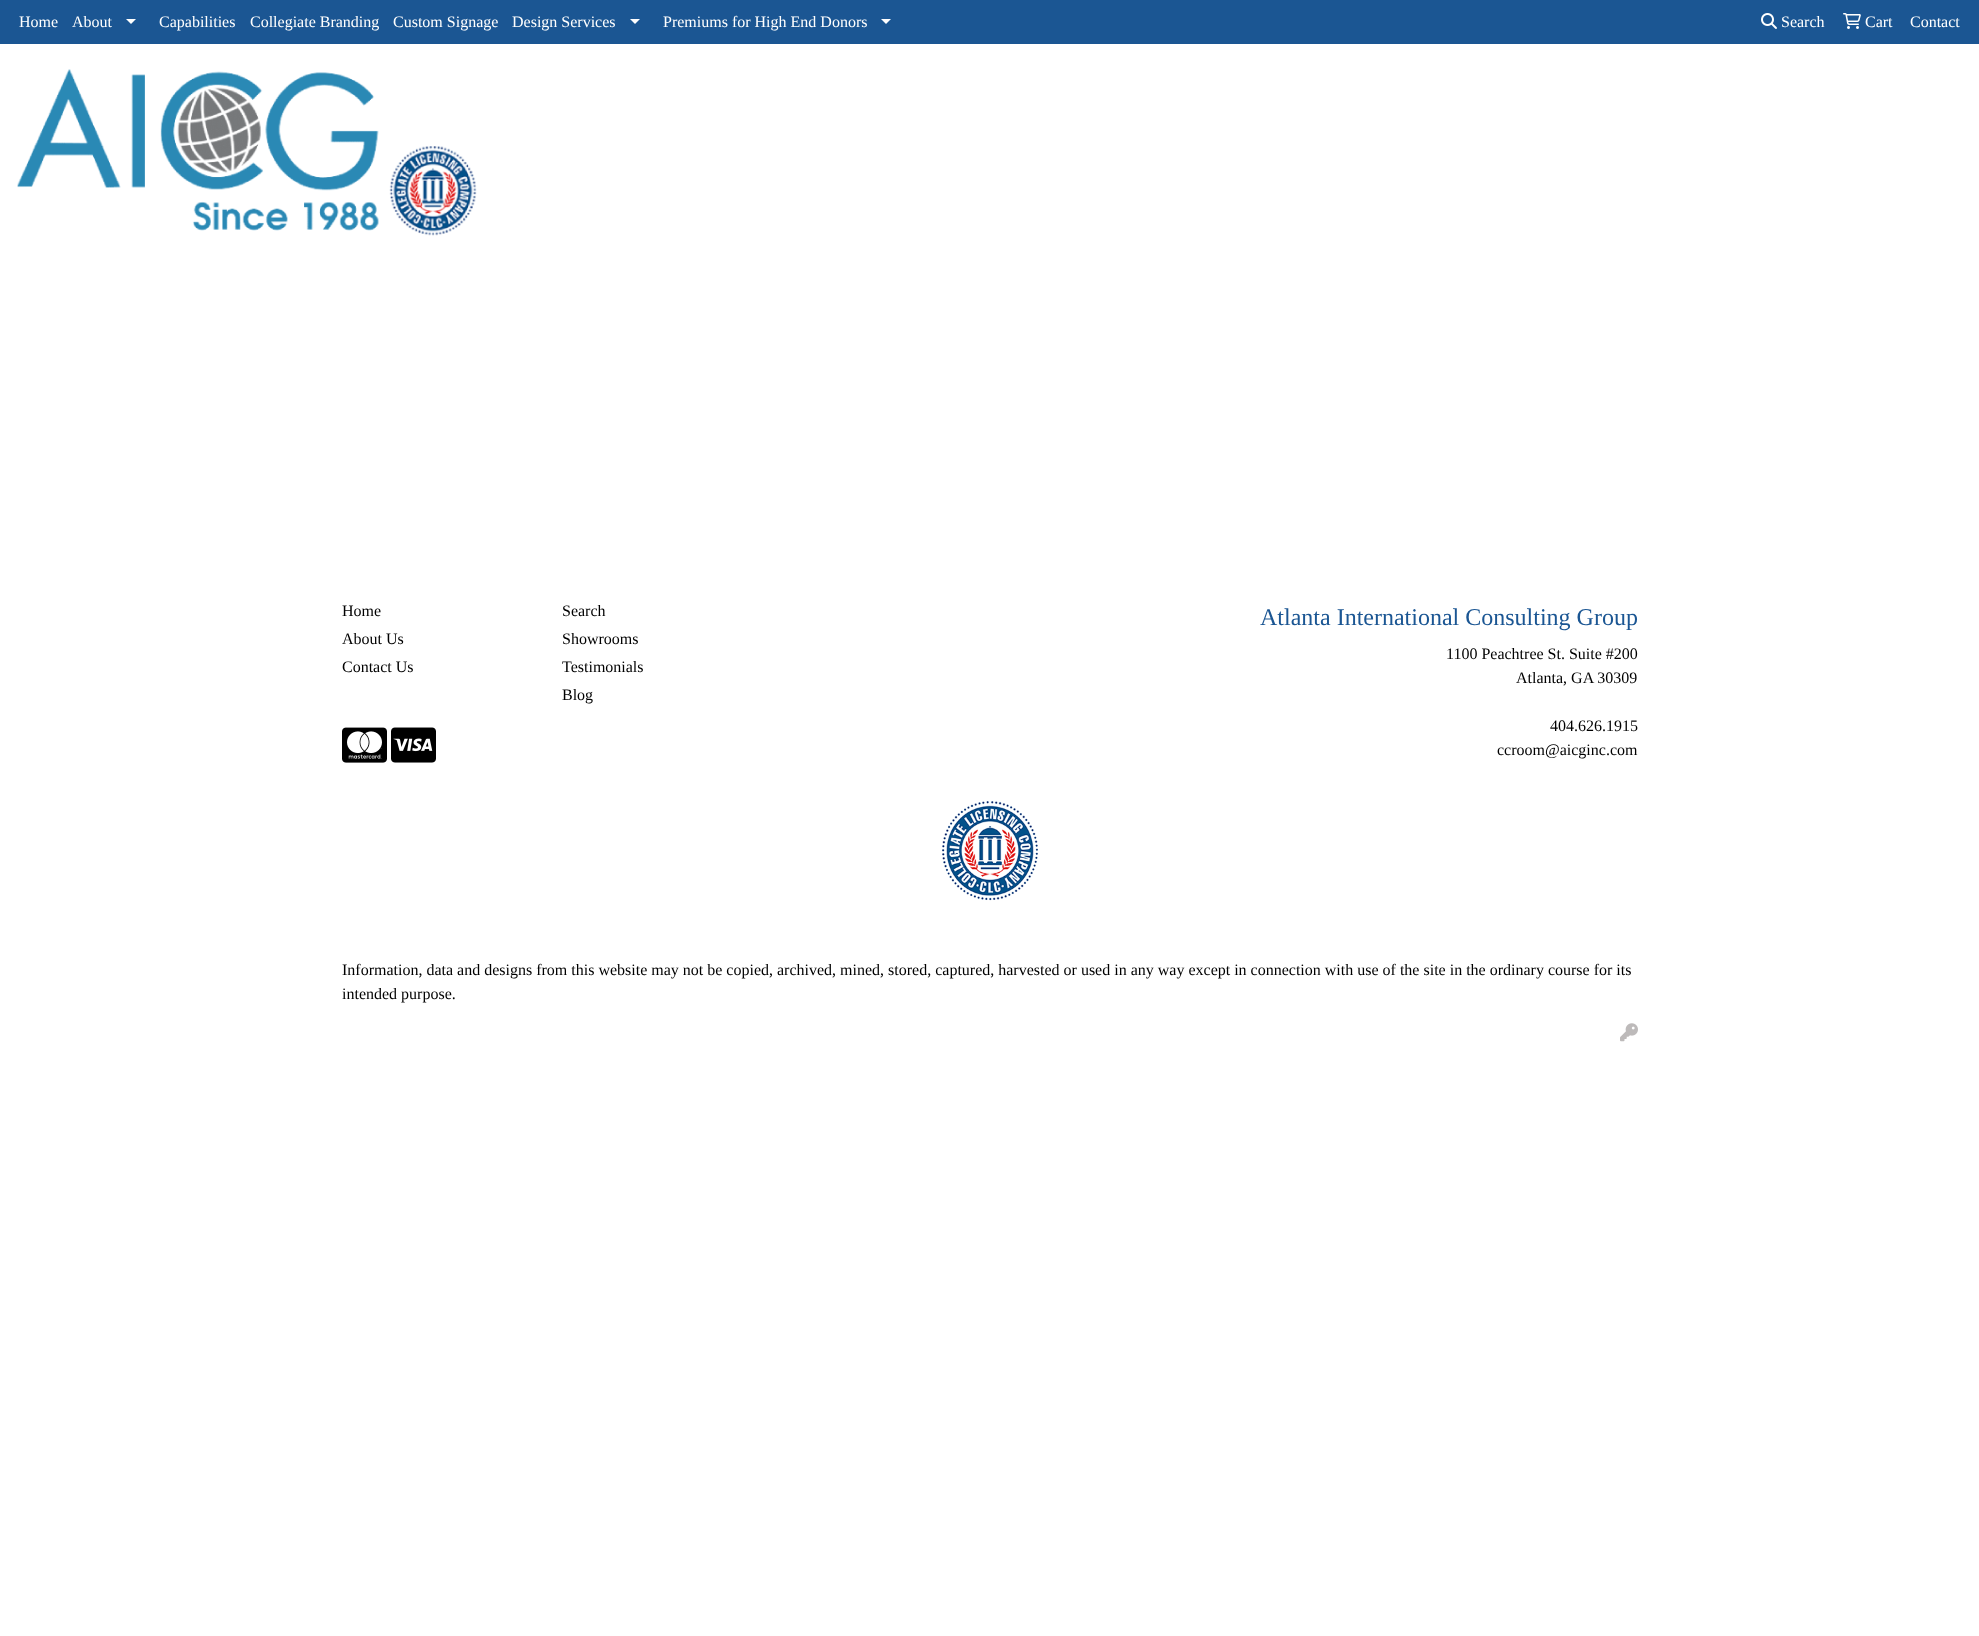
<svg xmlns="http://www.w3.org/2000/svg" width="1979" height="1636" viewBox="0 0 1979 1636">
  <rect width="100%" height="100%" fill="rgb(255,255,255)"/>
  <rect x="0" y="0" width="1979" height="44" fill="rgb(27,86,147)"/>
  <g font-family="Liberation Serif" font-size="16" fill="rgb(255,255,255)">
    <text x="19" y="27">Home</text>
    <text x="72" y="27">About</text>
  </g>
  <path d="M126 19H136L131 24Z" fill="rgb(255,255,255)"/>
  <g font-family="Liberation Serif" font-size="16" fill="rgb(255,255,255)">
    <text x="159" y="27">Capabilities</text>
    <text x="250" y="27">Collegiate Branding</text>
    <text x="393" y="27">Custom Signage</text>
    <text x="512" y="27">Design Services</text>
  </g>
  <path d="M630 19H640L635 24Z" fill="rgb(255,255,255)"/>
  <text x="663" y="27" font-family="Liberation Serif" font-size="16" fill="rgb(255,255,255)">Premiums for High End Donors</text>
  <path d="M881 19H891L886 24Z" fill="rgb(255,255,255)"/>
  <image x="1761" y="13" width="16" height="16" href="pic1.png"/>
  <text x="1781" y="27" font-family="Liberation Serif" font-size="16" fill="rgb(255,255,255)">Search</text>
  <image x="1843" y="13" width="18" height="16" href="pic2.png"/>
  <g font-family="Liberation Serif" font-size="16" fill="rgb(255,255,255)">
    <text x="1865" y="27">Cart</text>
    <text x="1910" y="27">Contact</text>
  </g>
  <image x="17" y="69" width="460" height="167" href="pic3.png"/>
  <g font-family="Liberation Serif" font-size="16" fill="rgb(0,0,0)">
    <text>
      <tspan x="342" y="616">Home</tspan>
      <tspan x="342" y="644">About Us</tspan>
      <tspan x="342" y="672">Contact Us</tspan>
    </text>
    <text>
      <tspan x="562" y="616">Search</tspan>
      <tspan x="562" y="644">Showrooms</tspan>
      <tspan x="562" y="672">Testimonials</tspan>
      <tspan x="562" y="700">Blog</tspan>
    </text>
  </g>
  <image x="342" y="727" width="45" height="36" href="pic4.png"/>
  <image x="391" y="727" width="45" height="36" href="pic5.png"/>
  <text x="1260" y="625" font-family="Liberation Serif" font-size="24" fill="rgb(27,86,147)">Atlanta International Consulting Group</text>
  <g font-family="Liberation Serif" font-size="16" fill="rgb(0,0,0)">
    <text x="1446" y="659">1100 Peachtree St. Suite #200</text>
    <text x="1516" y="683">Atlanta, GA 30309</text>
    <text x="1550" y="731">404.626.1915</text>
    <text x="1497" y="755">ccroom@aicginc.com</text>
  </g>
  <image x="942" y="801" width="96" height="100" href="pic6.png"/>
  <g font-family="Liberation Serif" font-size="16" fill="rgb(0,0,0)">
    <text>
      <tspan x="342" y="975">Information, data and designs from this website may not be copied, archived, mined, stored, captured, harvested or used in any way except in connection with use of the site in the ordinary course for its</tspan>
      <tspan x="342" y="999">intended purpose.</tspan>
    </text>
  </g>
  <image x="1620" y="1023" width="18" height="19" href="pic7.png"/>
</svg>
